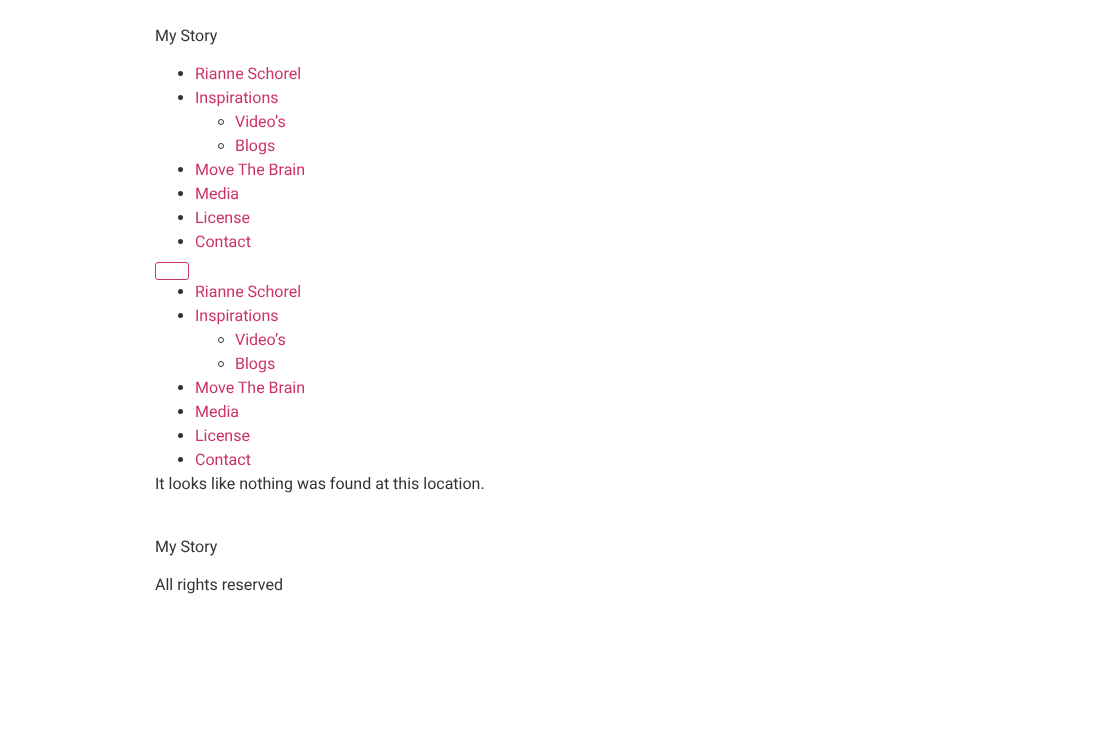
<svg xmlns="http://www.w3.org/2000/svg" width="1109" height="745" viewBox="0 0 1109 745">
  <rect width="100%" height="100%" fill="rgb(255,255,255)"/>
  <text x="155" y="41" font-family="Roboto" font-size="16" fill="rgb(51,51,51)">My Story</text>
  <circle cx="180.5" cy="73.5" r="2.5" fill="rgb(51,51,51)"/>
  <text x="195" y="79" font-family="Roboto" font-size="16" fill="rgb(204,51,102)">Rianne Schorel</text>
  <circle cx="180.5" cy="97.5" r="2.5" fill="rgb(51,51,51)"/>
  <text x="195" y="103" font-family="Roboto" font-size="16" fill="rgb(204,51,102)">Inspirations</text>
  <circle cx="221" cy="122" r="2.5" fill="none" stroke="rgb(51,51,51)"/>
  <text x="235" y="127" font-family="Roboto" font-size="16" fill="rgb(204,51,102)">Video’s</text>
  <circle cx="221" cy="146" r="2.5" fill="none" stroke="rgb(51,51,51)"/>
  <text x="235" y="151" font-family="Roboto" font-size="16" fill="rgb(204,51,102)">Blogs</text>
  <circle cx="180.5" cy="169.5" r="2.5" fill="rgb(51,51,51)"/>
  <text x="195" y="175" font-family="Roboto" font-size="16" fill="rgb(204,51,102)">Move The Brain</text>
  <circle cx="180.5" cy="193.5" r="2.5" fill="rgb(51,51,51)"/>
  <text x="195" y="199" font-family="Roboto" font-size="16" fill="rgb(204,51,102)">Media</text>
  <circle cx="180.5" cy="217.5" r="2.5" fill="rgb(51,51,51)"/>
  <text x="195" y="223" font-family="Roboto" font-size="16" fill="rgb(204,51,102)">License</text>
  <circle cx="180.5" cy="241.5" r="2.5" fill="rgb(51,51,51)"/>
  <text x="195" y="247" font-family="Roboto" font-size="16" fill="rgb(204,51,102)">Contact</text>
  <rect x="155.5" y="262.5" width="33" height="17" rx="2.5" fill="none" stroke="rgb(204,51,102)"/>
  <circle cx="180.5" cy="291.5" r="2.5" fill="rgb(51,51,51)"/>
  <text x="195" y="297" font-family="Roboto" font-size="16" fill="rgb(204,51,102)">Rianne Schorel</text>
  <circle cx="180.5" cy="315.5" r="2.5" fill="rgb(51,51,51)"/>
  <text x="195" y="321" font-family="Roboto" font-size="16" fill="rgb(204,51,102)">Inspirations</text>
  <circle cx="221" cy="340" r="2.5" fill="none" stroke="rgb(51,51,51)"/>
  <text x="235" y="345" font-family="Roboto" font-size="16" fill="rgb(204,51,102)">Video’s</text>
  <circle cx="221" cy="364" r="2.5" fill="none" stroke="rgb(51,51,51)"/>
  <text x="235" y="369" font-family="Roboto" font-size="16" fill="rgb(204,51,102)">Blogs</text>
  <circle cx="180.5" cy="387.5" r="2.5" fill="rgb(51,51,51)"/>
  <text x="195" y="393" font-family="Roboto" font-size="16" fill="rgb(204,51,102)">Move The Brain</text>
  <circle cx="180.5" cy="411.5" r="2.5" fill="rgb(51,51,51)"/>
  <text x="195" y="417" font-family="Roboto" font-size="16" fill="rgb(204,51,102)">Media</text>
  <circle cx="180.5" cy="435.5" r="2.5" fill="rgb(51,51,51)"/>
  <text x="195" y="441" font-family="Roboto" font-size="16" fill="rgb(204,51,102)">License</text>
  <circle cx="180.5" cy="459.5" r="2.5" fill="rgb(51,51,51)"/>
  <text x="195" y="465" font-family="Roboto" font-size="16" fill="rgb(204,51,102)">Contact</text>
  <g font-family="Roboto" font-size="16" fill="rgb(51,51,51)">
    <text x="155" y="489">It looks like nothing was found at this location.</text>
    <text x="155" y="552">My Story</text>
    <text x="155" y="590">All rights reserved</text>
  </g>
</svg>
